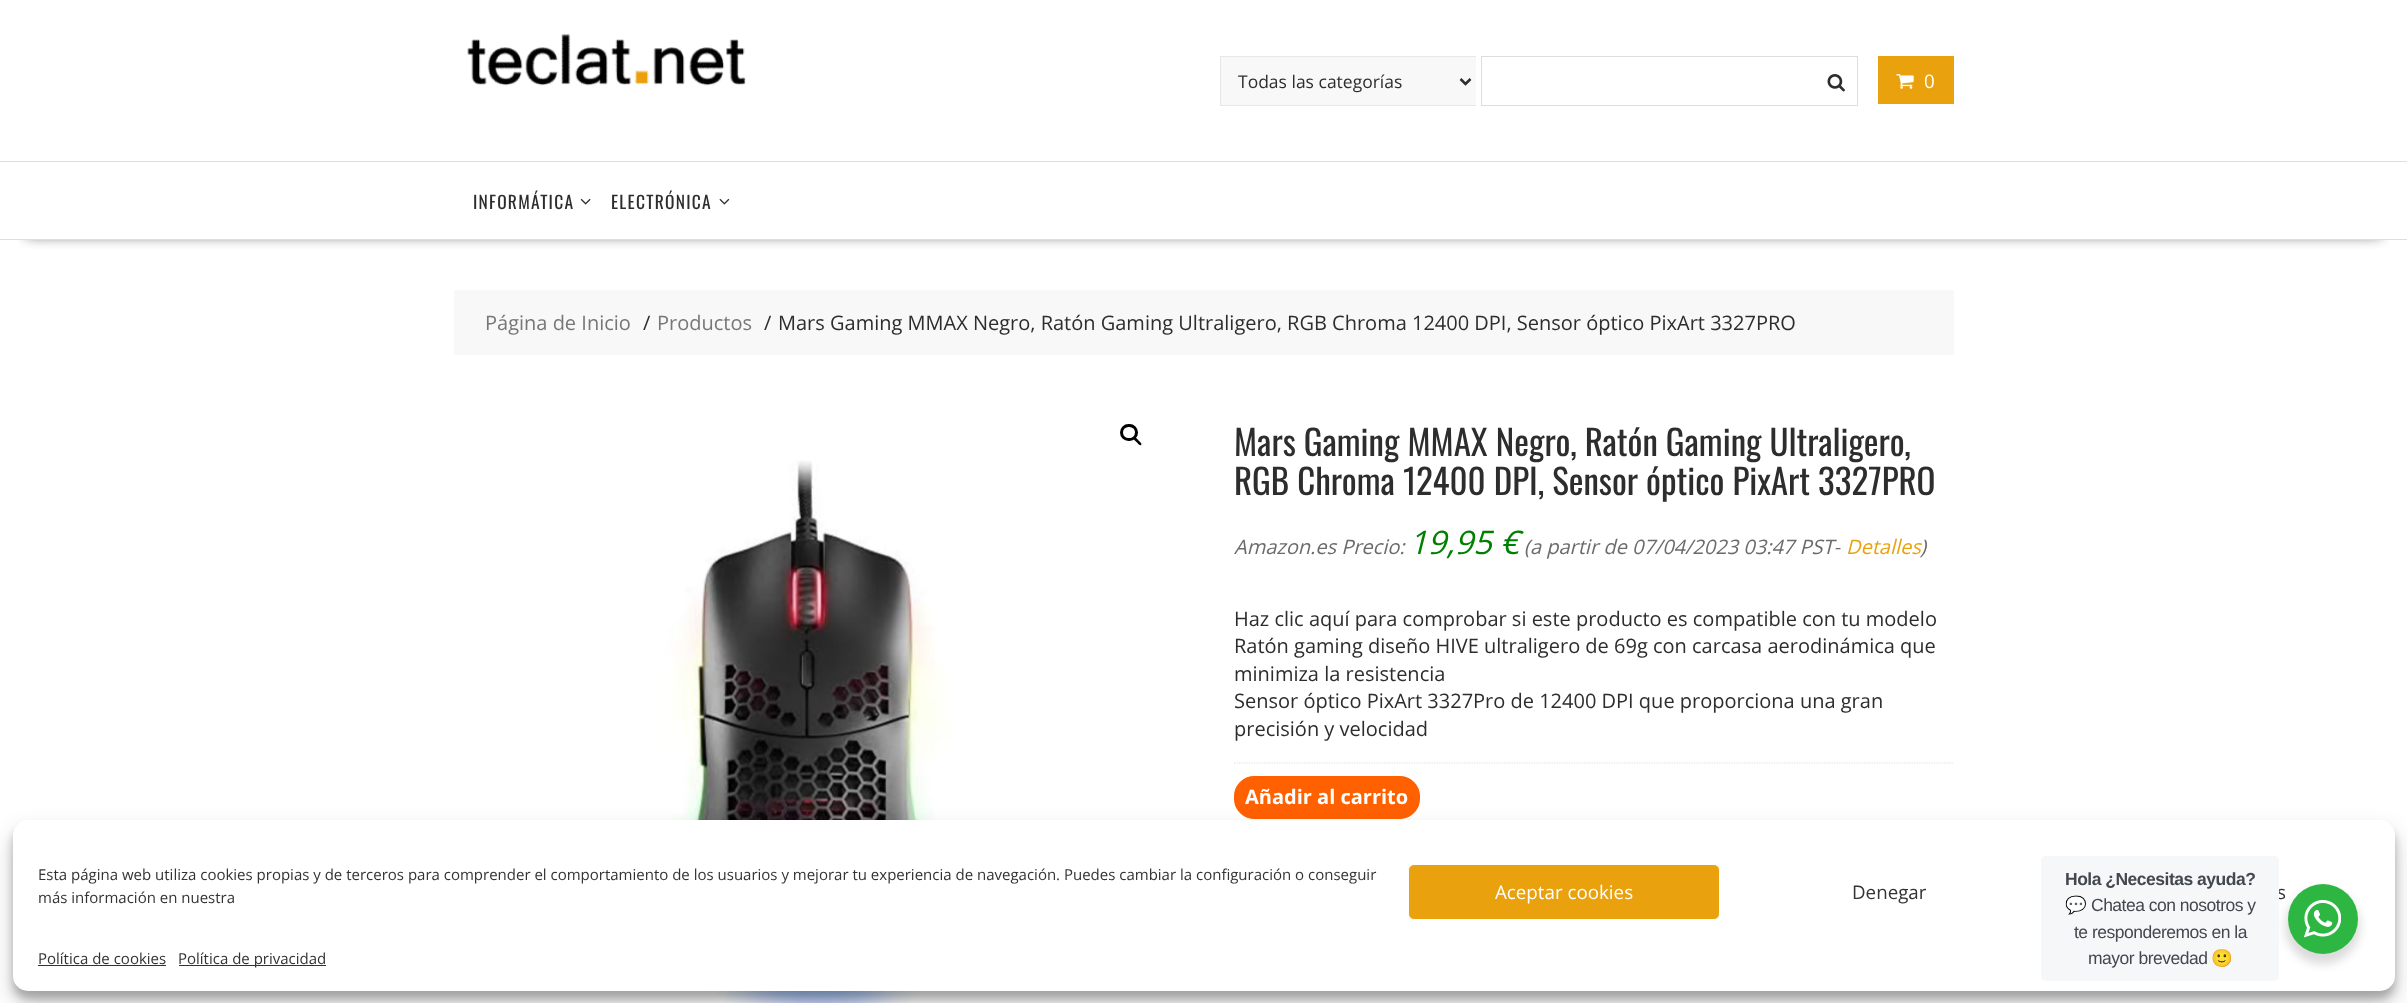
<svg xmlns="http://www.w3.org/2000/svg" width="2407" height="1003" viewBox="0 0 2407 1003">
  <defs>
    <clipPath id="clip1"><rect x="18" y="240" width="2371" height="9"/></clipPath>
  </defs>
  <rect width="100%" height="100%" fill="rgb(255,255,255)"/>
  <image x="467" y="34" width="279" height="52" href="pic1.png"/>
  <rect x="1221" y="57" width="255" height="48" fill="rgb(248,248,248)"/>
  <rect x="1220" y="56" width="256" height="1" fill="rgb(231,231,231)"/>
  <rect x="1220" y="105" width="256" height="1" fill="rgb(231,231,231)"/>
  <rect x="1220" y="56" width="1" height="50" fill="rgb(231,231,231)"/>
  <path d="M1460.5 79L1465.5 84L1470.5 79" fill="none" stroke="rgb(45,45,45)" stroke-width="2.5"/>
  <text x="1238" y="88" font-family="Open Sans" font-size="17.5" fill="rgb(45,45,45)">Todas las categorías</text>
  <rect x="1481.5" y="56.5" width="376" height="49" fill="none" stroke="rgb(221,221,221)"/>
  <image x="1827" y="74" width="18" height="18" href="pic2.png"/>
  <rect x="1878" y="56" width="76" height="48" fill="rgb(234,161,14)"/>
  <image x="1896" y="74" width="18" height="15" href="pic3.png"/>
  <text x="1924" y="88" font-family="Open Sans" font-size="18.75" fill="rgb(255,255,255)">0</text>
  <g clip-path="url(#clip1)">
    <rect x="26" y="209" width="2355" height="26" fill="rgba(0,0,0,0.75)" filter="blur(7px)"/>
  </g>
  <rect x="0" y="161" width="2407" height="1" fill="rgb(222,222,222)"/>
  <rect x="0" y="239" width="2407" height="1" fill="rgb(222,222,222)"/>
  <text x="473" y="209" font-family="Oswald" font-size="17.5" letter-spacing="1.25" fill="rgb(45,45,45)">INFORMÁTICA</text>
  <image x="580" y="198" width="11" height="7" href="pic4.png"/>
  <text x="611" y="209" font-family="Oswald" font-size="17.5" letter-spacing="1.25" fill="rgb(45,45,45)">ELECTRÓNICA</text>
  <image x="719" y="198" width="11" height="7" href="pic5.png"/>
  <rect x="454" y="290" width="1500" height="65" fill="rgb(248,248,248)"/>
  <text x="485" y="330" font-family="Open Sans" font-size="20" fill="rgb(119,119,119)">Página de Inicio</text>
  <text x="643" y="330" font-family="Open Sans" font-size="20" fill="rgb(45,45,45)">/</text>
  <text x="657" y="330" font-family="Open Sans" font-size="20" fill="rgb(119,119,119)">Productos</text>
  <g font-family="Open Sans" font-size="20" fill="rgb(45,45,45)">
    <text x="764" y="330">/</text>
    <text x="778" y="330">Mars Gaming MMAX Negro, Ratón Gaming Ultraligero, RGB Chroma 12400 DPI, Sensor óptico PixArt 3327PRO</text>
  </g>
  <rect x="1121.5" y="425.5" width="15" height="14" rx="7" fill="none" stroke="rgb(0,0,0)" stroke-width="3"/>
  <path d="M1134 437.5C1135.5 436.5 1137.5 439.5 1138.5 440.5C1139 441 1142.5 443.5 1141 445C1139.5 446 1137.5 443 1136.5 442C1136 441.5 1132.5 439 1134 437.5Z" fill="rgb(0,0,0)"/>
  <image x="665" y="460" width="288" height="543" href="pic6.png"/>
  <g font-family="Oswald" font-size="35" fill="rgb(45,45,45)">
    <text>
      <tspan x="1234" y="456">Mars Gaming MMAX Negro, Ratón Gaming Ultraligero,</tspan>
      <tspan x="1234" y="495">RGB Chroma 12400 DPI, Sensor óptico PixArt 3327PRO</tspan>
    </text>
  </g>
  <text x="1234" y="554" font-family="Open Sans" font-size="20" font-style="italic" fill="rgb(107,107,107)">Amazon.es Precio:</text>
  <text x="1409" y="554" font-family="Open Sans" font-size="32.5" font-style="italic" fill="rgb(0,128,0)">19,95 €</text>
  <text x="1524" y="554" font-family="Open Sans" font-size="20" font-style="italic" fill="rgb(107,107,107)">(a partir de 07/04/2023 03:47 PST-</text>
  <text x="1846" y="554" font-family="Open Sans" font-size="20" font-style="italic" fill="rgb(234,161,14)">Detalles</text>
  <text x="1920" y="554" font-family="Open Sans" font-size="20" font-style="italic" fill="rgb(107,107,107)">)</text>
  <g font-family="Open Sans" font-size="20" fill="rgb(45,45,45)">
    <text>
      <tspan x="1234" y="626">Haz clic aquí para comprobar si este producto es compatible con tu modelo</tspan>
      <tspan x="1234" y="653">Ratón gaming diseño HIVE ultraligero de 69g con carcasa aerodinámica que</tspan>
      <tspan x="1234" y="681">minimiza la resistencia</tspan>
      <tspan x="1234" y="708">Sensor óptico PixArt 3327Pro de 12400 DPI que proporciona una gran</tspan>
      <tspan x="1234" y="736">precisión y velocidad</tspan>
    </text>
  </g>
  <path d="M1234 763H1954" fill="none" stroke="rgb(221,221,221)" stroke-width="1.2" stroke-dasharray="1.25 1.25"/>
  <rect x="1234.5" y="776.5" width="185" height="42" rx="19.5" fill="rgb(255,96,0)" stroke="rgb(255,96,0)"/>
  <text x="1245" y="804" font-family="Open Sans" font-size="20" font-weight="bold" fill="rgb(255,255,255)">Añadir al carrito</text>
  <rect x="13" y="828" width="2382" height="171" rx="15" fill="rgba(0,0,0,0.23)" filter="blur(4px)"/>
  <rect x="13" y="833" width="2382" height="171" rx="15" fill="rgba(0,0,0,0.19)" filter="blur(12.5px)"/>
  <rect x="13" y="820" width="2382" height="171" rx="15" fill="rgb(255,255,255)"/>
  <g font-family="Open Sans" font-size="15" fill="rgb(51,51,51)">
    <text>
      <tspan x="38" y="880">Esta página web utiliza cookies propias y de terceros para comprender el comportamiento de los usuarios y mejorar tu experiencia de navegación. Puedes cambiar la configuración o conseguir</tspan>
      <tspan x="38" y="903">más información en nuestra</tspan>
    </text>
  </g>
  <rect x="1408.5" y="864.5" width="311" height="55" rx="5.5" fill="rgb(234,161,14)" stroke="rgb(255,255,255)"/>
  <text x="1495" y="899" font-family="Open Sans" font-size="18.75" fill="rgb(255,255,255)">Aceptar cookies</text>
  <g font-family="Open Sans" font-size="18.75" fill="rgb(51,51,51)">
    <text x="1852" y="899">Denegar</text>
    <text x="2277" y="899">s</text>
  </g>
  <text x="38" y="964" font-family="Open Sans" font-size="15" fill="rgb(51,51,51)">Política de cookies</text>
  <rect x="38" y="965" width="128" height="1" fill="rgb(51,51,51)"/>
  <rect x="179" y="965" width="147" height="1" fill="rgb(51,51,51)"/>
  <text x="178" y="964" font-family="Open Sans" font-size="15" fill="rgb(51,51,51)">Política de privacidad</text>
  <rect x="2285" y="889" width="75" height="75" rx="37.5" fill="rgba(0,0,0,0.14)" filter="blur(5px)"/>
  <rect x="2041" y="856" width="238" height="125" rx="5" fill="rgb(245,247,249)"/>
  <text x="2065" y="885" font-family="Liberation Sans" font-size="17.5" font-weight="bold" letter-spacing="-0.5" fill="rgb(67,71,78)">Hola ¿Necesitas ayuda?</text>
  <text x="2065" y="911" font-family="Noto Color Emoji" font-size="17.5" letter-spacing="-0.5" fill="rgb(67,71,78)">💬</text>
  <g font-family="Liberation Sans" font-size="17.5" letter-spacing="-0.5" fill="rgb(67,71,78)">
    <text x="2091" y="911">Chatea con nosotros y</text>
    <text x="2074" y="938">te responderemos en la</text>
    <text x="2088" y="964">mayor brevedad</text>
  </g>
  <text x="2211" y="964" font-family="Noto Color Emoji" font-size="17.5" letter-spacing="-0.5" fill="rgb(67,71,78)">🙂</text>
  <circle cx="2323" cy="919" r="35" fill="rgb(45,183,66)"/>
  <image x="2304" y="900" width="37" height="38" href="pic7.png"/>
</svg>
